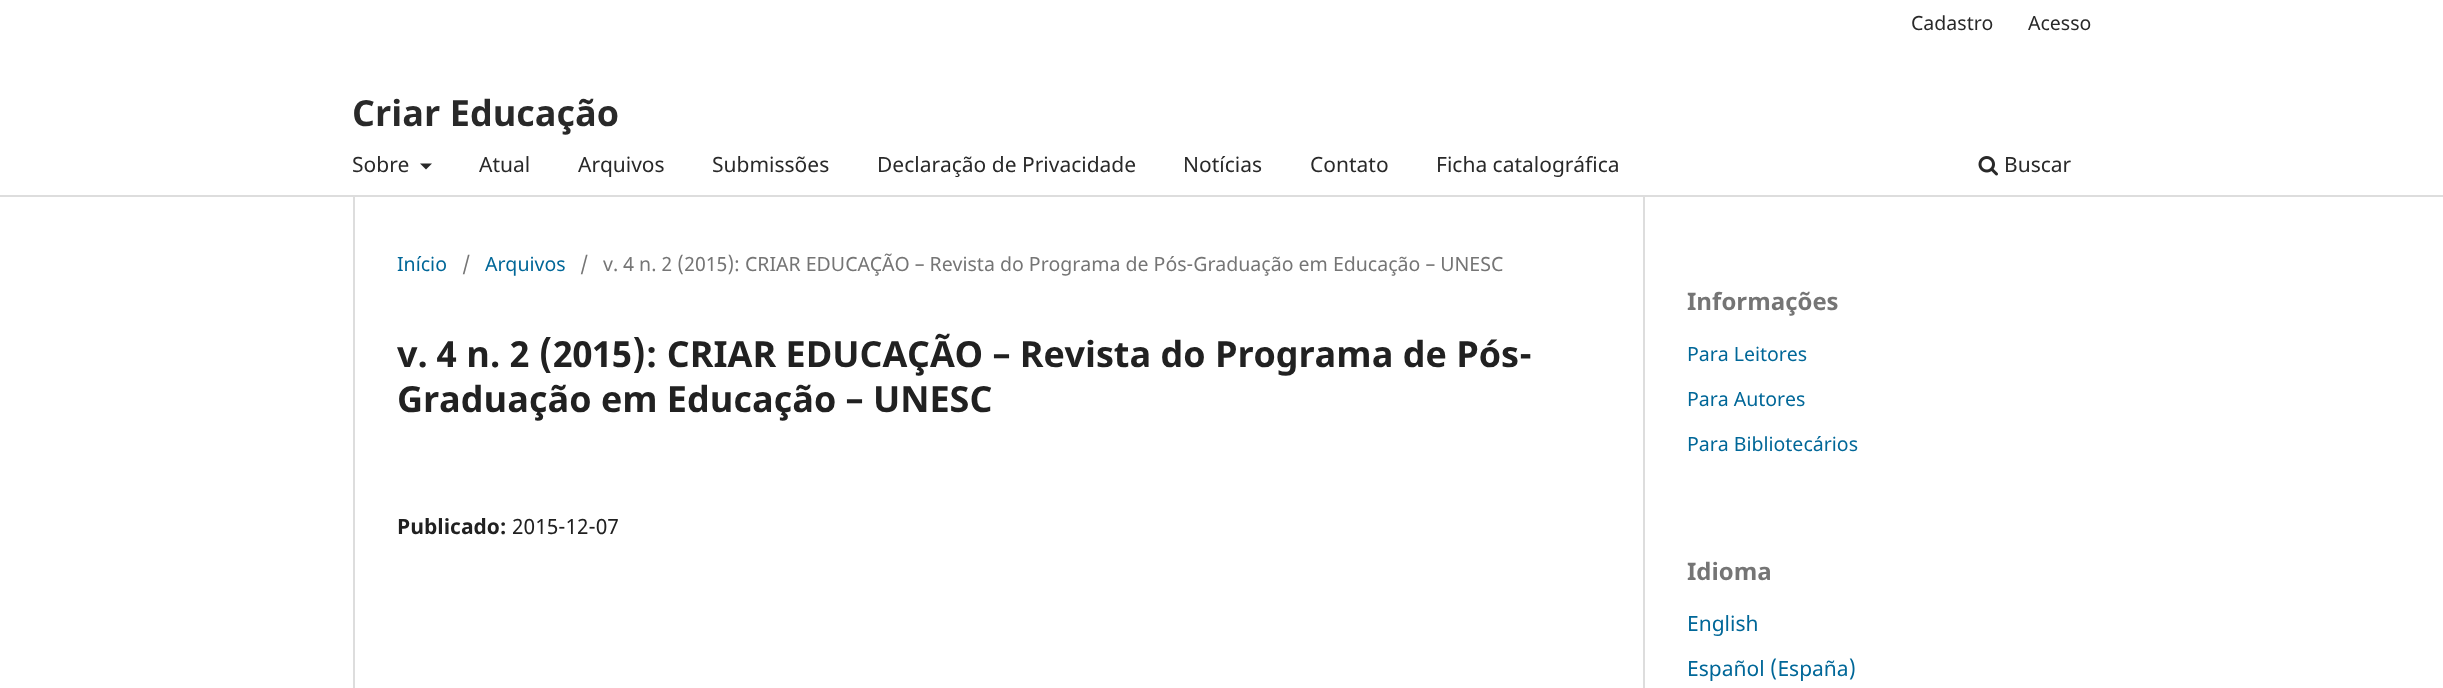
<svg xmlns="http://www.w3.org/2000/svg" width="2443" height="688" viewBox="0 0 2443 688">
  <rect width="100%" height="100%" fill="rgb(255,255,255)"/>
  <rect x="0" y="195" width="2443" height="2" fill="rgb(221,221,221)"/>
  <g font-family="Noto Sans" font-size="19.55" fill="rgb(41,41,41)">
    <text x="1911" y="30">Cadastro</text>
    <text x="2028" y="30">Acesso</text>
  </g>
  <text x="352" y="172" font-family="Noto Sans" font-size="21" fill="rgb(41,41,41)">Sobre</text>
  <path d="M420 163.5H432L426 169.5Z" fill="rgb(41,41,41)"/>
  <g font-family="Noto Sans" font-size="21" fill="rgb(41,41,41)">
    <text x="479" y="172">Atual</text>
    <text x="578" y="172">Arquivos</text>
    <text x="712" y="172">Submissões</text>
    <text x="877" y="172">Declaração de Privacidade</text>
    <text x="1183" y="172">Notícias</text>
    <text x="1310" y="172">Contato</text>
    <text x="1436" y="172">Ficha catalográfica</text>
  </g>
  <image x="1978" y="156" width="20" height="20" href="pic1.png"/>
  <text x="2004" y="172" font-family="Noto Sans" font-size="21" fill="rgb(41,41,41)">Buscar</text>
  <text x="352" y="126" font-family="Noto Sans" font-size="36" font-weight="bold" fill="rgb(41,41,41)">Criar Educação</text>
  <rect x="353" y="197" width="2" height="491" fill="rgb(221,221,221)"/>
  <text x="397" y="271" font-family="Noto Sans" font-size="19.55" fill="rgb(0,103,152)">Início</text>
  <text x="462" y="271" font-family="Noto Sans" font-size="19.55" fill="rgb(117,117,117)">/</text>
  <text x="485" y="271" font-family="Noto Sans" font-size="19.55" fill="rgb(0,103,152)">Arquivos</text>
  <g font-family="Noto Sans" font-size="19.55" fill="rgb(117,117,117)">
    <text x="580" y="271">/</text>
    <text x="603" y="271">v. 4 n. 2 (2015): CRIAR EDUCAÇÃO – Revista do Programa de Pós-Graduação em Educação – UNESC</text>
  </g>
  <g font-family="Noto Sans" font-size="36" font-weight="bold" fill="rgb(33,33,33)">
    <text>
      <tspan x="397" y="367">v. 4 n. 2 (2015): CRIAR EDUCAÇÃO – Revista do Programa de Pós-</tspan>
      <tspan x="397" y="412">Graduação em Educação – UNESC</tspan>
    </text>
  </g>
  <text x="397" y="534" font-family="Noto Sans" font-size="21" font-weight="bold" fill="rgb(33,33,33)">Publicado:</text>
  <text x="512" y="534" font-family="Noto Sans" font-size="21" fill="rgb(33,33,33)">2015-12-07</text>
  <rect x="1643" y="197" width="2" height="491" fill="rgb(221,221,221)"/>
  <text x="1687" y="310" font-family="Noto Sans" font-size="24" font-weight="bold" fill="rgb(117,117,117)">Informações</text>
  <g font-family="Noto Sans" font-size="19.55" fill="rgb(0,103,152)">
    <text x="1687" y="361">Para Leitores</text>
    <text x="1687" y="406">Para Autores</text>
    <text x="1687" y="451">Para Bibliotecários</text>
  </g>
  <text x="1687" y="580" font-family="Noto Sans" font-size="24" font-weight="bold" fill="rgb(117,117,117)">Idioma</text>
  <g font-family="Noto Sans" font-size="21" fill="rgb(0,103,152)">
    <text x="1687" y="631">English</text>
    <text x="1687" y="676">Español (España)</text>
  </g>
</svg>
